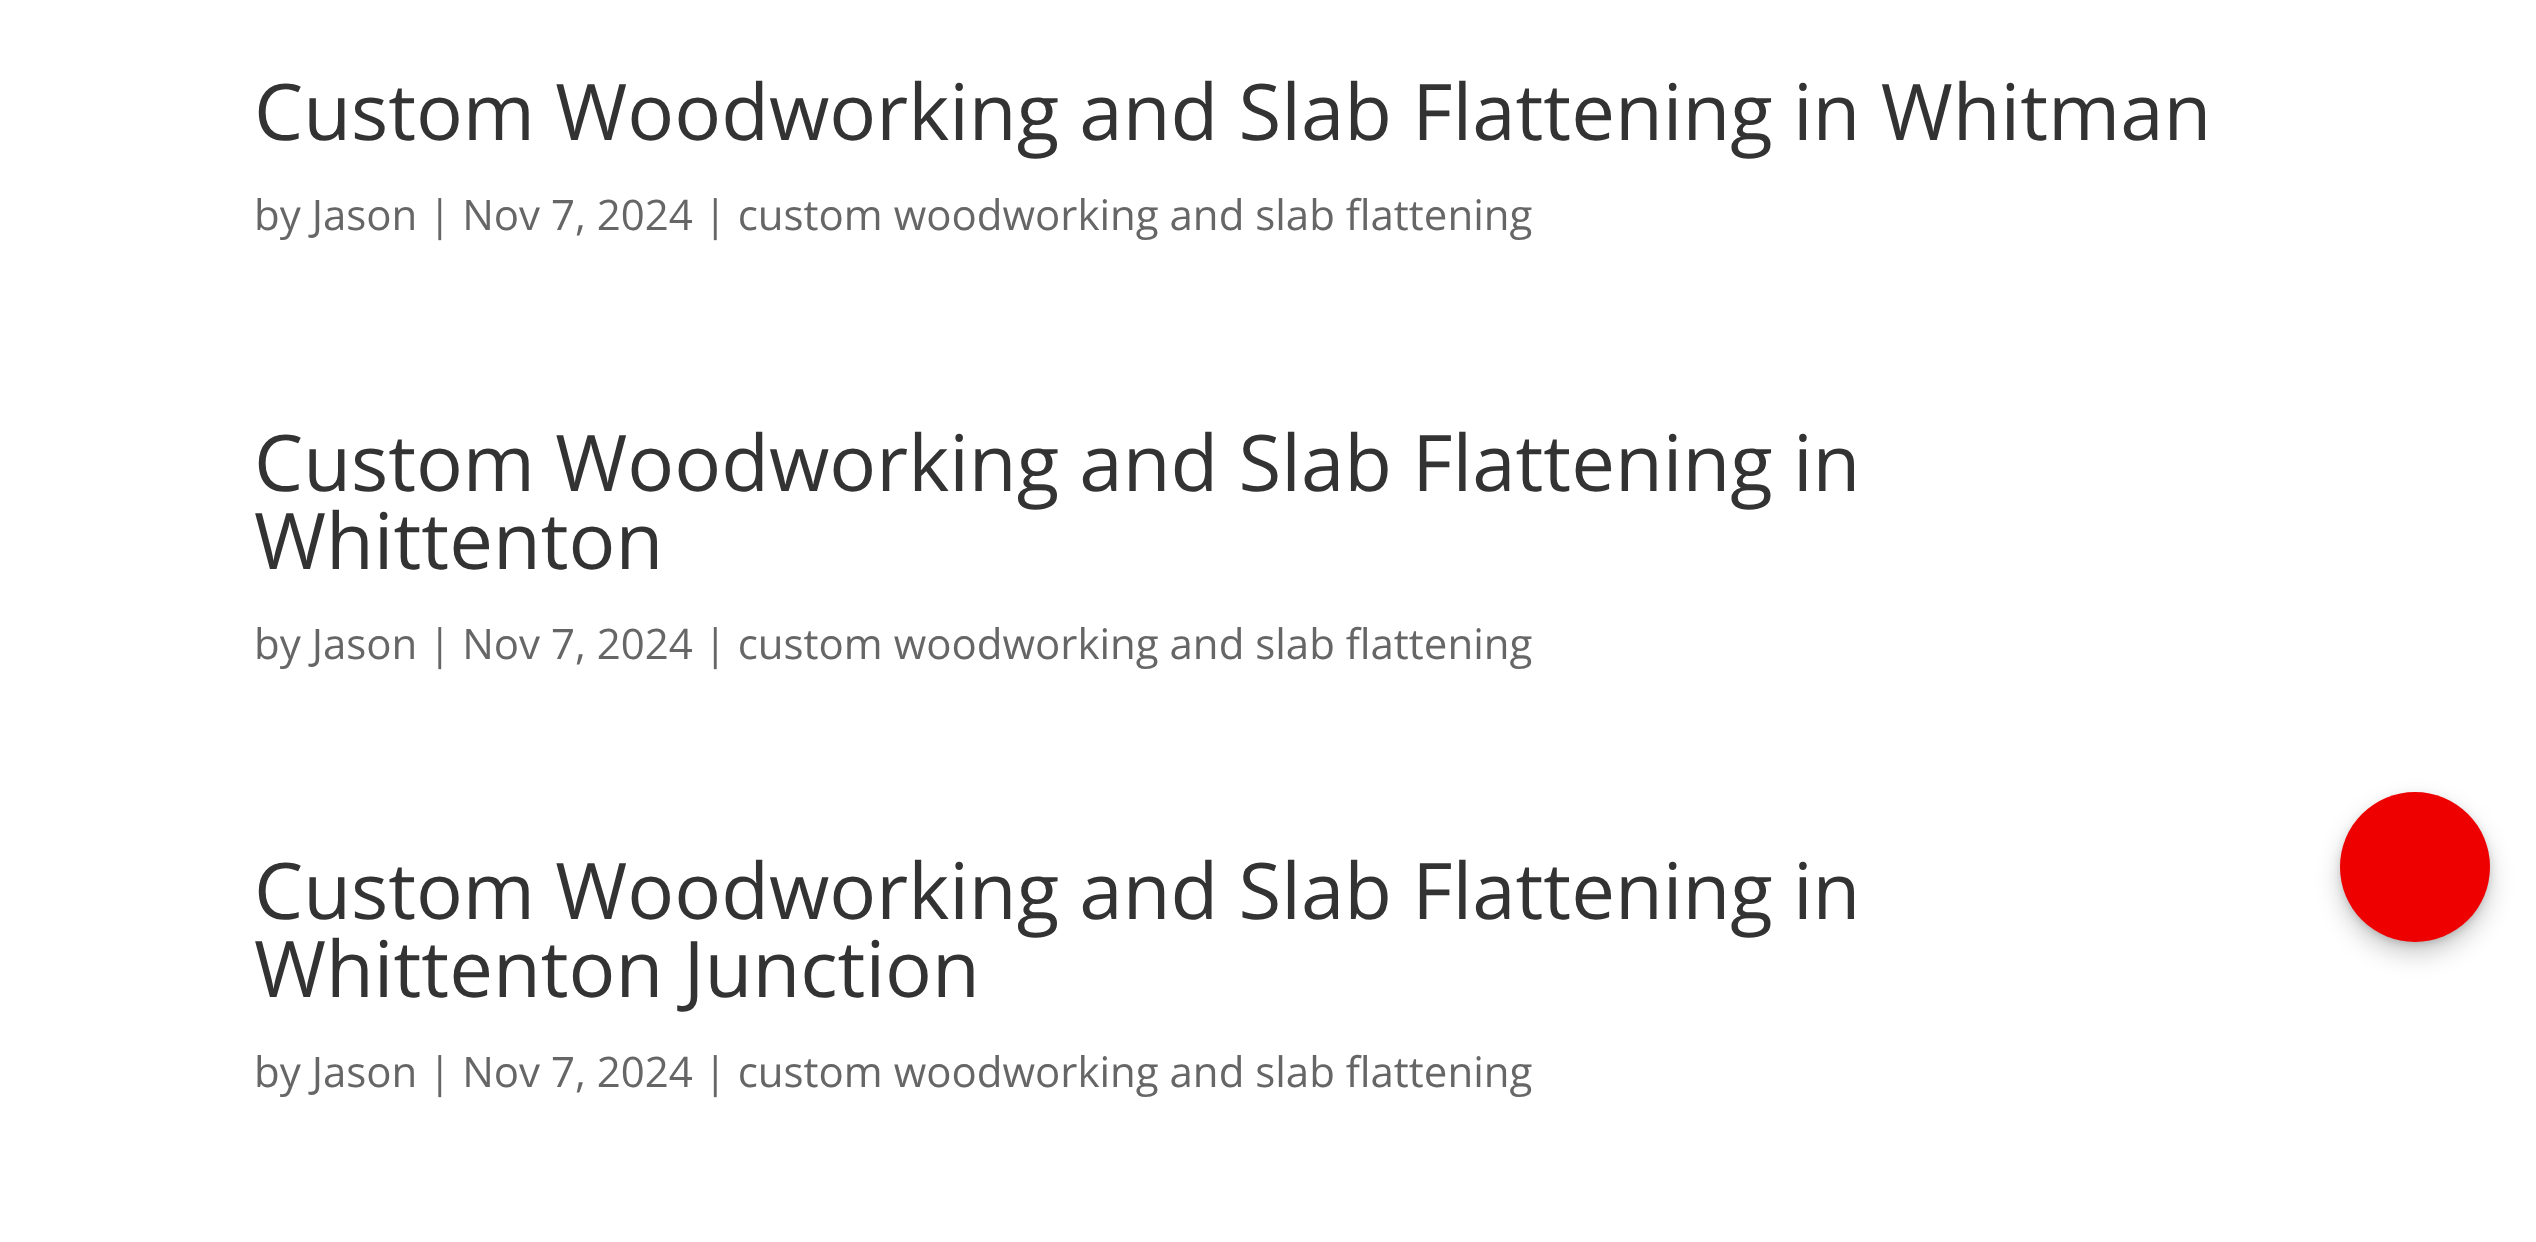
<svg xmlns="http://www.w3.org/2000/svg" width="2536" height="1242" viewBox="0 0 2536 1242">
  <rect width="100%" height="100%" fill="rgb(255,255,255)"/>
  <text x="254" y="140" font-family="Open Sans" font-size="78" fill="rgb(51,51,51)">Custom Woodworking and Slab Flattening in Whitman</text>
  <text x="254" y="230" font-family="Open Sans" font-size="42" fill="rgb(102,102,102)">by Jason | Nov 7, 2024 | custom woodworking and slab flattening</text>
  <g font-family="Open Sans" font-size="78" fill="rgb(51,51,51)">
    <text>
      <tspan x="254" y="491">Custom Woodworking and Slab Flattening in</tspan>
      <tspan x="254" y="569">Whittenton</tspan>
    </text>
  </g>
  <text x="254" y="659" font-family="Open Sans" font-size="42" fill="rgb(102,102,102)">by Jason | Nov 7, 2024 | custom woodworking and slab flattening</text>
  <g font-family="Open Sans" font-size="78" fill="rgb(51,51,51)">
    <text>
      <tspan x="254" y="919">Custom Woodworking and Slab Flattening in</tspan>
      <tspan x="254" y="997">Whittenton Junction</tspan>
    </text>
  </g>
  <text x="254" y="1087" font-family="Open Sans" font-size="42" fill="rgb(102,102,102)">by Jason | Nov 7, 2024 | custom woodworking and slab flattening</text>
  <rect x="2340" y="804" width="150" height="150" rx="75" fill="rgba(0,0,0,0.2)" filter="blur(12px)"/>
  <rect x="2343" y="798" width="144" height="144" rx="72" fill="rgba(0,0,0,0.1)" filter="blur(3px)"/>
  <rect x="2340" y="795" width="150" height="150" rx="75" fill="rgba(0,0,0,0.1)" filter="blur(4.5px)"/>
  <circle cx="2415" cy="867" r="75" fill="rgb(239,0,0)"/>
</svg>
